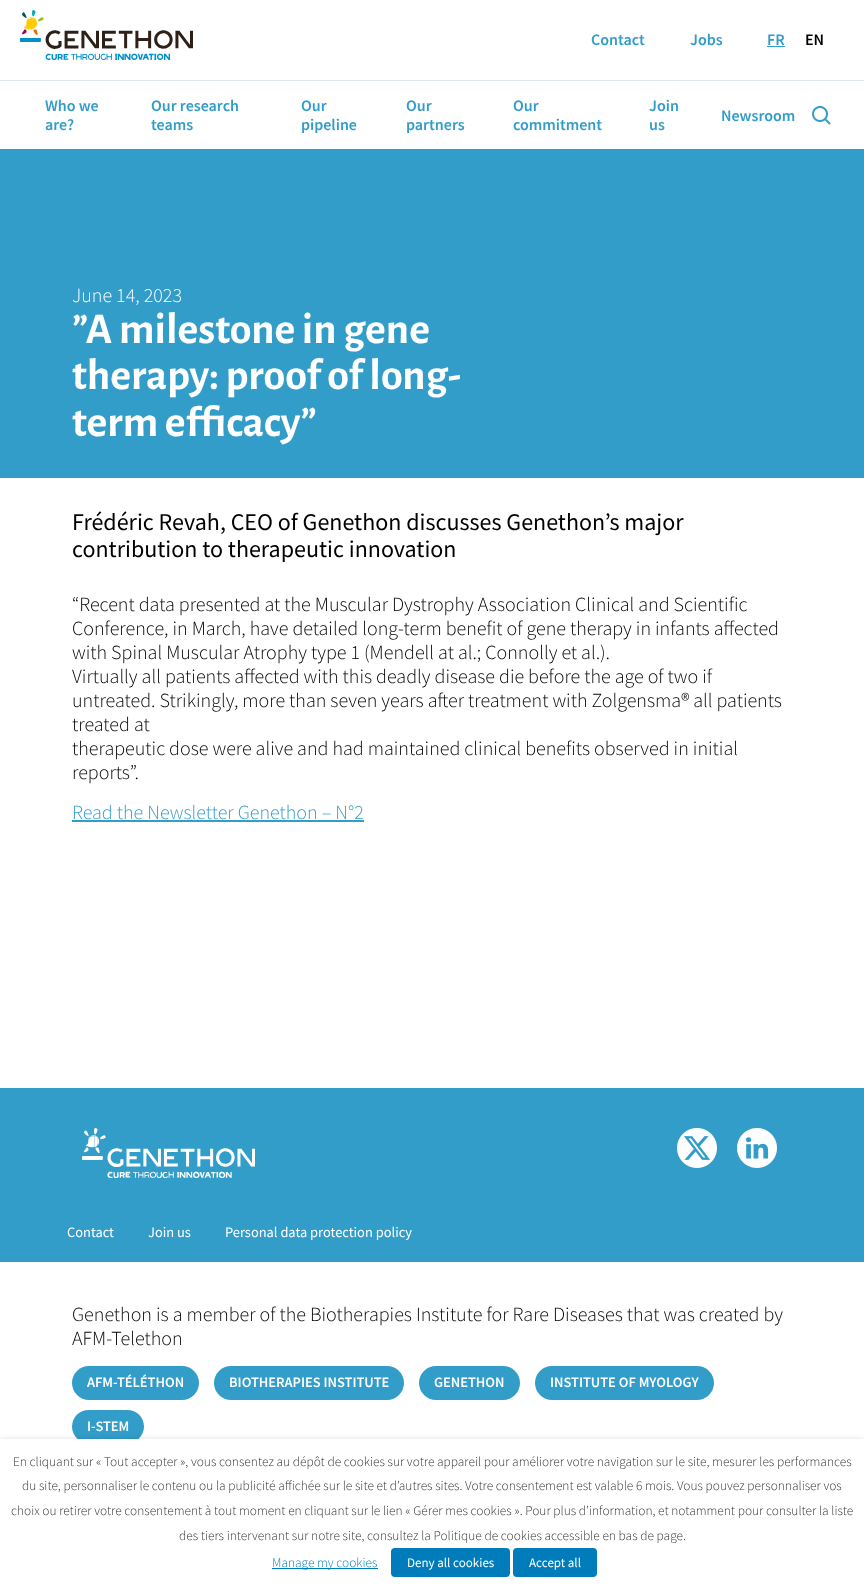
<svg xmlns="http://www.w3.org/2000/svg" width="864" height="1587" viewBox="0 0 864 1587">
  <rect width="100%" height="100%" fill="rgb(255,255,255)"/>
  <image x="20" y="10" width="173" height="50" href="pic1.png"/>
  <g font-family="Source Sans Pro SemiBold" font-size="16" font-weight="600" fill="rgb(50,157,201)">
    <text x="591" y="45">Contact</text>
    <text x="690" y="45">Jobs</text>
    <text x="767" y="45">FR</text>
  </g>
  <rect x="767" y="46" width="18" height="1" fill="rgb(50,157,201)"/>
  <text x="805" y="45" font-family="Source Sans Pro SemiBold" font-size="16" font-weight="600" fill="rgb(0,0,0)">EN</text>
  <rect x="0" y="80" width="864" height="1" fill="rgb(222,233,237)"/>
  <g font-family="Source Sans Pro SemiBold" font-size="16" font-weight="600" fill="rgb(50,157,201)">
    <text>
      <tspan x="45" y="111">Who we</tspan>
      <tspan x="45" y="130">are?</tspan>
    </text>
    <text>
      <tspan x="151" y="111">Our research</tspan>
      <tspan x="151" y="130">teams</tspan>
    </text>
    <text>
      <tspan x="301" y="111">Our</tspan>
      <tspan x="301" y="130">pipeline</tspan>
    </text>
    <text>
      <tspan x="406" y="111">Our</tspan>
      <tspan x="406" y="130">partners</tspan>
    </text>
    <text>
      <tspan x="513" y="111">Our</tspan>
      <tspan x="513" y="130">commitment</tspan>
    </text>
    <text>
      <tspan x="649" y="111">Join</tspan>
      <tspan x="649" y="130">us</tspan>
    </text>
    <text x="721" y="121">Newsroom</text>
  </g>
  <image x="812" y="106" width="19" height="19" href="pic2.png"/>
  <rect x="0" y="149" width="864" height="329" fill="rgb(50,157,201)"/>
  <text x="72" y="302" font-family="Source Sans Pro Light" font-size="20" font-weight="300" fill="rgb(255,255,255)">June 14, 2023</text>
  <g font-family="Alegreya Sans" font-size="44" font-weight="bold" fill="rgb(255,255,255)">
    <text>
      <tspan x="72" y="343">”A milestone in gene</tspan>
      <tspan x="72" y="389">therapy: proof of long-</tspan>
      <tspan x="72" y="436">term efficacy”</tspan>
    </text>
  </g>
  <g font-family="Source Sans Pro" font-size="24" fill="rgb(0,0,0)">
    <text>
      <tspan x="72" y="530">Frédéric Revah, CEO of Genethon discusses Genethon’s major</tspan>
      <tspan x="72" y="557">contribution to therapeutic innovation</tspan>
    </text>
  </g>
  <g font-family="Source Sans Pro Light" font-size="20" font-weight="300" fill="rgb(0,0,0)">
    <text>
      <tspan x="72" y="611">“Recent data presented at the Muscular Dystrophy Association Clinical and Scientific</tspan>
      <tspan x="72" y="635">Conference, in March, have detailed long-term benefit of gene therapy in infants affected</tspan>
      <tspan x="72" y="659">with Spinal Muscular Atrophy type 1 (Mendell at al.; Connolly et al.).</tspan>
      <tspan x="72" y="683">Virtually all patients affected with this deadly disease die before the age of two if</tspan>
      <tspan x="72" y="707">untreated. Strikingly, more than seven years after treatment with Zolgensma® all patients</tspan>
      <tspan x="72" y="731">treated at</tspan>
      <tspan x="72" y="755">therapeutic dose were alive and had maintained clinical benefits observed in initial</tspan>
      <tspan x="72" y="779">reports”.</tspan>
    </text>
  </g>
  <text x="72" y="819" font-family="Source Sans Pro Light" font-size="20" font-weight="300" fill="rgb(50,157,201)">Read the Newsletter Genethon – N°2</text>
  <rect x="72" y="820" width="292" height="2" fill="rgb(50,157,201)"/>
  <rect x="0" y="1088" width="864" height="174" fill="rgb(50,157,201)"/>
  <image x="82" y="1128" width="173" height="50" href="pic3.png"/>
  <image x="677" y="1128" width="40" height="40" href="pic4.png"/>
  <image x="737" y="1128" width="40" height="40" href="pic5.png"/>
  <g font-family="Source Sans Pro" font-size="14.4" fill="rgb(255,255,255)">
    <text x="67" y="1237">Contact</text>
    <text x="148" y="1237">Join us</text>
    <text x="225" y="1237">Personal data protection policy</text>
  </g>
  <g font-family="Source Sans Pro Light" font-size="20" font-weight="300" fill="rgb(0,0,0)">
    <text>
      <tspan x="72" y="1321">Genethon is a member of the Biotherapies Institute for Rare Diseases that was created by</tspan>
      <tspan x="72" y="1345">AFM-Telethon</tspan>
    </text>
  </g>
  <rect x="72" y="1366" width="127" height="34" rx="17" fill="rgb(50,157,201)"/>
  <text x="87" y="1387" font-family="Source Sans Pro SemiBold" font-size="14.4" font-weight="600" fill="rgb(255,255,255)">AFM-TÉLÉTHON</text>
  <rect x="214" y="1366" width="190" height="34" rx="17" fill="rgb(50,157,201)"/>
  <text x="229" y="1387" font-family="Source Sans Pro SemiBold" font-size="14.4" font-weight="600" fill="rgb(255,255,255)">BIOTHERAPIES INSTITUTE</text>
  <rect x="419" y="1366" width="101" height="34" rx="17" fill="rgb(50,157,201)"/>
  <text x="434" y="1387" font-family="Source Sans Pro SemiBold" font-size="14.4" font-weight="600" fill="rgb(255,255,255)">GENETHON</text>
  <rect x="535" y="1366" width="179" height="34" rx="17" fill="rgb(50,157,201)"/>
  <text x="550" y="1387" font-family="Source Sans Pro SemiBold" font-size="14.4" font-weight="600" fill="rgb(255,255,255)">INSTITUTE OF MYOLOGY</text>
  <rect x="72" y="1410" width="72" height="33" rx="16.5" fill="rgb(50,157,201)"/>
  <text x="87" y="1431" font-family="Source Sans Pro SemiBold" font-size="14.4" font-weight="600" fill="rgb(255,255,255)">I-STEM</text>
  <rect x="0" y="1444" width="864" height="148" fill="rgba(0,0,0,0.5)" filter="blur(5px)"/>
  <rect x="0" y="1439" width="864" height="148" fill="rgb(255,255,255)"/>
  <g font-family="Source Sans Pro Light" font-size="13.33" font-weight="300" fill="rgb(51,51,51)">
    <text x="13" y="1466">En cliquant sur « Tout accepter », vous consentez au dépôt de cookies sur votre appareil pour améliorer votre navigation sur le site, mesurer les performances</text>
    <text x="22" y="1490">du site, personnaliser le contenu ou la publicité affichée sur le site et d’autres sites. Votre consentement est valable 6 mois. Vous pouvez personnaliser vos</text>
    <text x="11" y="1515">choix ou retirer votre consentement à tout moment en cliquant sur le lien « Gérer mes cookies ». Pour plus d’information, et notamment pour consulter la liste</text>
    <text x="179" y="1540">des tiers intervenant sur notre site, consultez la Politique de cookies accessible en bas de page.</text>
  </g>
  <rect x="272" y="1568" width="106" height="1" fill="rgb(0,124,186)"/>
  <text x="272" y="1567" font-family="Source Sans Pro Light" font-size="13.33" font-weight="300" fill="rgb(0,124,186)">Manage my cookies</text>
  <rect x="391" y="1548" width="119" height="29" rx="4" fill="rgb(0,124,186)"/>
  <text x="407" y="1567" font-family="Source Sans Pro" font-size="13" fill="rgb(255,255,255)">Deny all cookies</text>
  <rect x="513" y="1548" width="84" height="29" rx="4" fill="rgb(0,124,186)"/>
  <text x="529" y="1567" font-family="Source Sans Pro" font-size="13" fill="rgb(255,255,255)">Accept all</text>
</svg>
